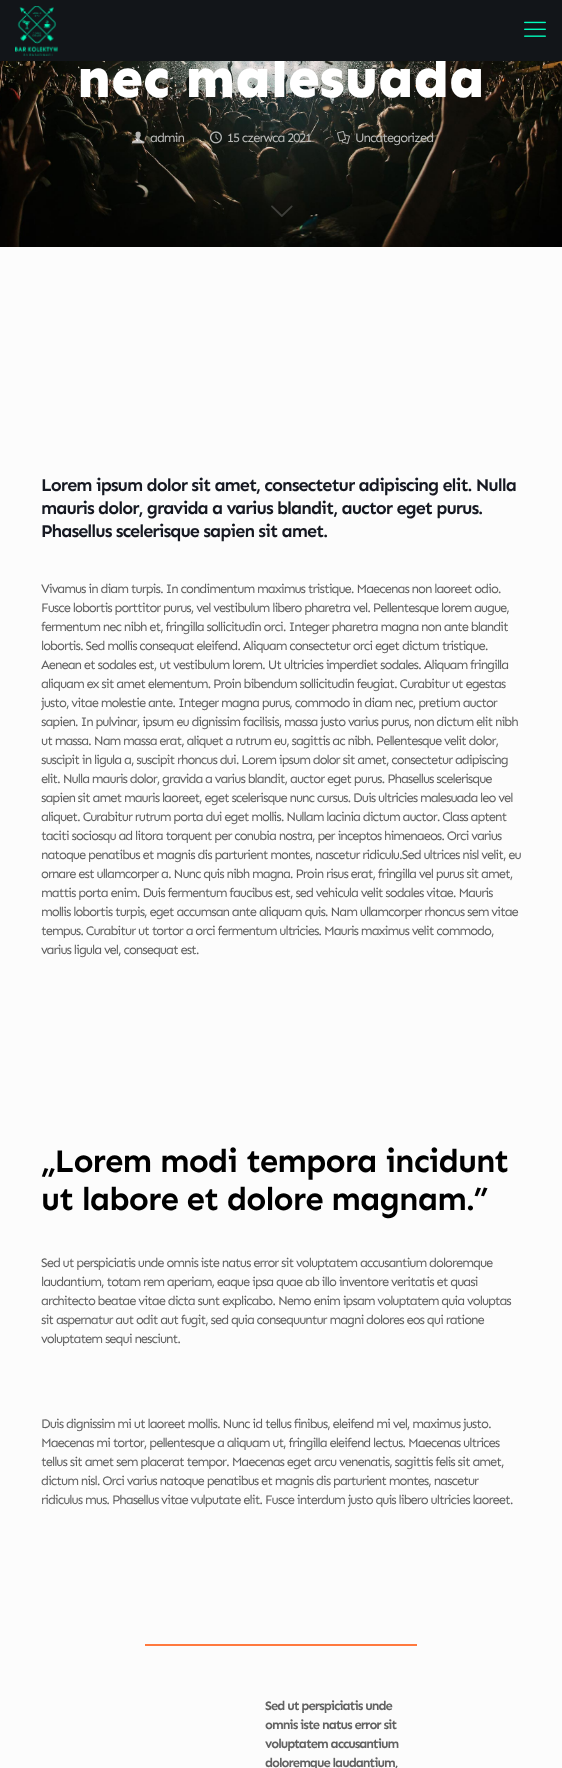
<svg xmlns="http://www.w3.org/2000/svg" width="562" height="1768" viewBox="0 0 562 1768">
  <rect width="100%" height="100%" fill="rgb(252,252,252)"/>
  <image x="0" y="61" width="562" height="186" href="pic3.png"/>
  <text x="77" y="97" font-family="Sen" font-size="56" font-weight="800" fill="rgb(255,255,255)">nec malesuada</text>
  <rect x="0" y="0" width="562" height="61" fill="rgb(18,21,25)"/>
  <image x="15" y="6" width="43" height="50" href="pic1.png"/>
  <image x="524" y="21" width="22" height="16" href="pic2.png"/>
  <image x="132" y="131" width="13" height="13" href="pic4.png"/>
  <text x="150" y="142" font-family="Sen" font-size="13" letter-spacing="-1" fill="rgb(184,185,183)">admin</text>
  <image x="210" y="131" width="12" height="13" href="pic5.png"/>
  <text x="227" y="142" font-family="Sen" font-size="13" letter-spacing="-1" fill="rgb(184,185,183)">15 czerwca 2021</text>
  <image x="337" y="131" width="13" height="13" href="pic6.png"/>
  <text x="355" y="142" font-family="Sen" font-size="13" letter-spacing="-1" fill="rgb(184,185,183)">Uncategorized</text>
  <image x="271" y="205" width="22" height="12" href="pic7.png"/>
  <g font-family="Sen" font-size="18" font-weight="bold" letter-spacing="-1" fill="rgb(22,25,34)">
    <text>
      <tspan x="41" y="491">Lorem ipsum dolor sit amet, consectetur adipiscing elit. Nulla</tspan>
      <tspan x="41" y="514">mauris dolor, gravida a varius blandit, auctor eget purus.</tspan>
      <tspan x="41" y="537">Phasellus scelerisque sapien sit amet.</tspan>
    </text>
  </g>
  <g font-family="Sen" font-size="13" letter-spacing="-1" fill="rgb(98,98,98)">
    <text>
      <tspan x="41" y="593">Vivamus in diam turpis. In condimentum maximus tristique. Maecenas non laoreet odio.</tspan>
      <tspan x="41" y="612">Fusce lobortis porttitor purus, vel vestibulum libero pharetra vel. Pellentesque lorem augue,</tspan>
      <tspan x="41" y="631">fermentum nec nibh et, fringilla sollicitudin orci. Integer pharetra magna non ante blandit</tspan>
      <tspan x="41" y="650">lobortis. Sed mollis consequat eleifend. Aliquam consectetur orci eget dictum tristique.</tspan>
      <tspan x="41" y="669">Aenean et sodales est, ut vestibulum lorem. Ut ultricies imperdiet sodales. Aliquam fringilla</tspan>
      <tspan x="41" y="688">aliquam ex sit amet elementum. Proin bibendum sollicitudin feugiat. Curabitur ut egestas</tspan>
      <tspan x="41" y="707">justo, vitae molestie ante. Integer magna purus, commodo in diam nec, pretium auctor</tspan>
      <tspan x="41" y="726">sapien. In pulvinar, ipsum eu dignissim facilisis, massa justo varius purus, non dictum elit nibh</tspan>
      <tspan x="41" y="745">ut massa. Nam massa erat, aliquet a rutrum eu, sagittis ac nibh. Pellentesque velit dolor,</tspan>
      <tspan x="41" y="764">suscipit in ligula a, suscipit rhoncus dui. Lorem ipsum dolor sit amet, consectetur adipiscing</tspan>
      <tspan x="41" y="783">elit. Nulla mauris dolor, gravida a varius blandit, auctor eget purus. Phasellus scelerisque</tspan>
      <tspan x="41" y="802">sapien sit amet mauris laoreet, eget scelerisque nunc cursus. Duis ultricies malesuada leo vel</tspan>
      <tspan x="41" y="821">aliquet. Curabitur rutrum porta dui eget mollis. Nullam lacinia dictum auctor. Class aptent</tspan>
      <tspan x="41" y="840">taciti sociosqu ad litora torquent per conubia nostra, per inceptos himenaeos. Orci varius</tspan>
      <tspan x="41" y="859">natoque penatibus et magnis dis parturient montes, nascetur ridiculu.Sed ultrices nisl velit, eu</tspan>
      <tspan x="41" y="878">ornare est ullamcorper a. Nunc quis nibh magna. Proin risus erat, fringilla vel purus sit amet,</tspan>
      <tspan x="41" y="897">mattis porta enim. Duis fermentum faucibus est, sed vehicula velit sodales vitae. Mauris</tspan>
      <tspan x="41" y="916">mollis lobortis turpis, eget accumsan ante aliquam quis. Nam ullamcorper rhoncus sem vitae</tspan>
      <tspan x="41" y="935">tempus. Curabitur ut tortor a orci fermentum ultricies. Mauris maximus velit commodo,</tspan>
      <tspan x="41" y="954">varius ligula vel, consequat est.</tspan>
    </text>
  </g>
  <g font-family="Sen" font-size="33" font-weight="bold" letter-spacing="-1" fill="rgb(0,0,0)">
    <text>
      <tspan x="41" y="1172">„Lorem modi tempora incidunt</tspan>
      <tspan x="41" y="1210">ut labore et dolore magnam.”</tspan>
    </text>
  </g>
  <g font-family="Sen" font-size="13" letter-spacing="-1" fill="rgb(98,98,98)">
    <text>
      <tspan x="41" y="1267">Sed ut perspiciatis unde omnis iste natus error sit voluptatem accusantium doloremque</tspan>
      <tspan x="41" y="1286">laudantium, totam rem aperiam, eaque ipsa quae ab illo inventore veritatis et quasi</tspan>
      <tspan x="41" y="1305">architecto beatae vitae dicta sunt explicabo. Nemo enim ipsam voluptatem quia voluptas</tspan>
      <tspan x="41" y="1324">sit aspernatur aut odit aut fugit, sed quia consequuntur magni dolores eos qui ratione</tspan>
      <tspan x="41" y="1343">voluptatem sequi nesciunt.</tspan>
    </text>
    <text>
      <tspan x="41" y="1428">Duis dignissim mi ut laoreet mollis. Nunc id tellus finibus, eleifend mi vel, maximus justo.</tspan>
      <tspan x="41" y="1447">Maecenas mi tortor, pellentesque a aliquam ut, fringilla eleifend lectus. Maecenas ultrices</tspan>
      <tspan x="41" y="1466">tellus sit amet sem placerat tempor. Maecenas eget arcu venenatis, sagittis felis sit amet,</tspan>
      <tspan x="41" y="1485">dictum nisl. Orci varius natoque penatibus et magnis dis parturient montes, nascetur</tspan>
      <tspan x="41" y="1504">ridiculus mus. Phasellus vitae vulputate elit. Fusce interdum justo quis libero ultricies laoreet.</tspan>
    </text>
  </g>
  <rect x="145" y="1644" width="272" height="2" fill="rgb(255,121,62)"/>
  <g font-family="Sen" font-size="13" font-weight="bold" letter-spacing="-1" fill="rgb(98,98,98)">
    <text>
      <tspan x="265" y="1710">Sed ut perspiciatis unde</tspan>
      <tspan x="265" y="1729">omnis iste natus error sit</tspan>
      <tspan x="265" y="1748">voluptatem accusantium</tspan>
      <tspan x="265" y="1767">doloremque laudantium,</tspan>
    </text>
  </g>
</svg>
